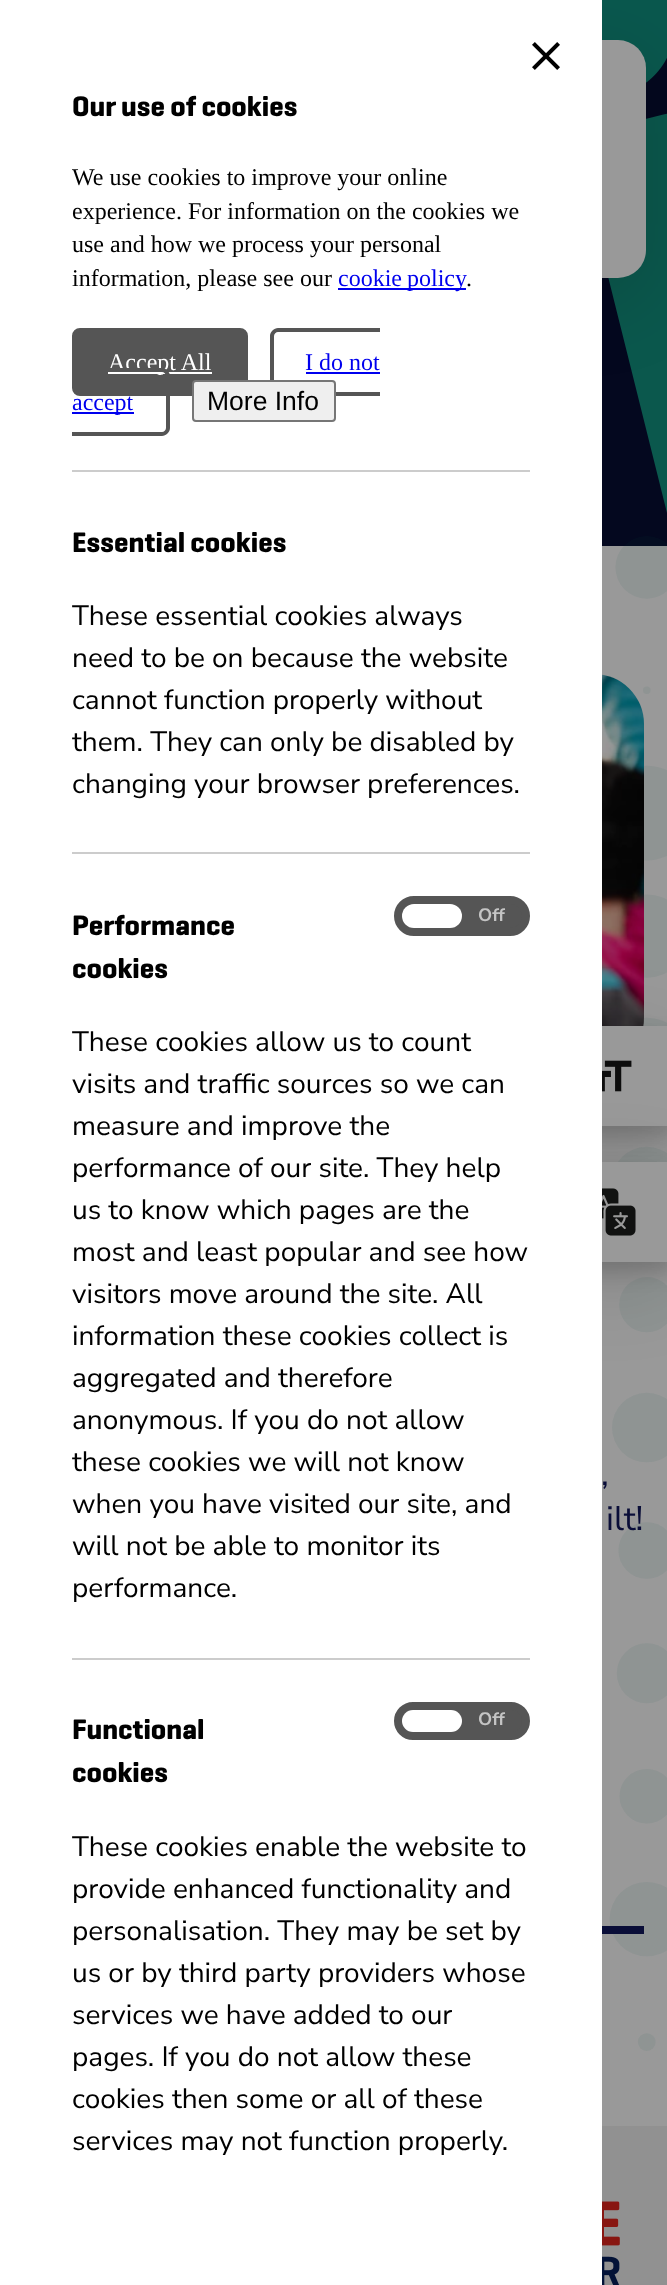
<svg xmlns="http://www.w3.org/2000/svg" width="667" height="2285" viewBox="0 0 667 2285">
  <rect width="100%" height="100%" fill="rgb(153,153,153)"/>
  <rect x="602" y="57" width="65" height="489" fill="rgb(4,8,31)"/>
  <image x="602" y="0" width="65" height="513" href="pic5.png"/>
  <rect x="24" y="60" width="622" height="238" rx="28" fill="rgba(0,0,0,0.15)" filter="blur(40px)"/>
  <rect x="24" y="40" width="622" height="238" rx="28" fill="rgb(153,153,153)"/>
  <image x="609" y="536" width="58" height="1515" href="pic6.png"/>
  <image x="602" y="674" width="42" height="352" href="pic7.png"/>
  <rect x="552" y="1036" width="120" height="100" fill="rgba(0,0,0,0.16)" filter="blur(10px)"/>
  <rect x="552" y="1046" width="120" height="100" fill="rgba(0,0,0,0.15)" filter="blur(40px)"/>
  <rect x="552" y="1172" width="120" height="100" fill="rgba(0,0,0,0.16)" filter="blur(10px)"/>
  <rect x="602" y="1026" width="65" height="100" fill="rgb(153,153,153)"/>
  <image x="602" y="1060" width="30" height="32" href="pic2.png"/>
  <rect x="552" y="1182" width="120" height="100" fill="rgba(0,0,0,0.15)" filter="blur(40px)"/>
  <rect x="0" y="0" width="602" height="2285" fill="rgb(255,255,255)"/>
  <image x="532" y="42" width="28" height="28" href="pic1.png"/>
  <text x="72" y="116" font-family="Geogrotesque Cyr" font-size="28.75" font-weight="bold" fill="rgb(0,0,0)">Our use of cookies</text>
  <g font-family="Liberation Serif" font-size="24" fill="rgb(0,0,0)">
    <text>
      <tspan x="72" y="185">We use cookies to improve your online</tspan>
      <tspan x="72" y="219">experience. For information on the cookies we</tspan>
      <tspan x="72" y="252">use and how we process your personal</tspan>
      <tspan x="72" y="286">information, please see our</tspan>
    </text>
  </g>
  <rect x="338" y="288" width="128" height="2" fill="rgb(0,0,238)"/>
  <text x="338" y="286" word-spacing="-1" font-family="Liberation Serif" font-size="24" fill="rgb(0,0,238)">cookie policy</text>
  <text x="466" y="286" font-family="Liberation Serif" font-size="24" fill="rgb(0,0,0)">.</text>
  <rect x="74" y="330" width="172" height="64" rx="6" fill="rgb(85,85,85)" stroke="rgb(85,85,85)" stroke-width="4"/>
  <rect x="108" y="372" width="104" height="2" fill="rgb(255,255,255)"/>
  <text x="108" y="370" font-family="Liberation Serif" font-size="24" fill="rgb(255,255,255)">Accept All</text>
  <path d="M278 328H380V396H278C274 396 270 392 270 388V336C270 332 274 328 278 328ZM278 332H380V392H278C276 392 274 390 274 388V336C274 334 276 332 278 332Z" fill="rgb(85,85,85)" fill-rule="evenodd"/>
  <text x="305" y="370" font-family="Liberation Serif" font-size="24" fill="rgb(0,0,238)">I do not</text>
  <rect x="306" y="372" width="74" height="2" fill="rgb(0,0,238)"/>
  <path d="M72 368H162C166 368 170 372 170 376V428C170 432 166 436 162 436H72ZM72 372H162C164 372 166 374 166 376V428C166 430 164 432 162 432H72Z" fill="rgb(85,85,85)" fill-rule="evenodd"/>
  <rect x="72" y="412" width="62" height="2" fill="rgb(0,0,238)"/>
  <text x="72" y="410" font-family="Liberation Serif" font-size="24" fill="rgb(0,0,238)">accept</text>
  <rect x="193" y="381" width="142" height="40" rx="3" fill="rgb(239,239,239)" stroke="rgb(118,118,118)" stroke-width="2"/>
  <text x="207" y="410" font-family="Liberation Sans" font-size="26.5" fill="rgb(0,0,0)">More Info</text>
  <rect x="72" y="470" width="458" height="2" fill="rgb(204,204,204)"/>
  <text x="72" y="552" font-family="Geogrotesque Cyr" font-size="28.75" font-weight="bold" fill="rgb(0,0,0)">Essential cookies</text>
  <g font-family="Nunito Sans" font-size="28" fill="rgb(0,0,0)">
    <text>
      <tspan x="72" y="625">These essential cookies always</tspan>
      <tspan x="72" y="667">need to be on because the website</tspan>
      <tspan x="72" y="709">cannot function properly without</tspan>
      <tspan x="72" y="751">them. They can only be disabled by</tspan>
      <tspan x="72" y="793">changing your browser preferences.</tspan>
    </text>
  </g>
  <rect x="72" y="852" width="458" height="2" fill="rgb(204,204,204)"/>
  <g font-family="Geogrotesque Cyr" font-size="28.75" font-weight="bold" fill="rgb(0,0,0)">
    <text>
      <tspan x="72" y="935">Performance</tspan>
      <tspan x="72" y="978">cookies</tspan>
    </text>
  </g>
  <rect x="398" y="900" width="128" height="32" rx="16" fill="rgb(85,85,85)" stroke="rgb(85,85,85)" stroke-width="8"/>
  <rect x="402" y="904" width="60" height="24" rx="12" fill="rgb(255,255,255)"/>
  <text x="478" y="921" font-family="Nunito Sans" font-size="18" font-weight="bold" fill="rgb(196,196,196)">Off</text>
  <g font-family="Nunito Sans" font-size="28" fill="rgb(0,0,0)">
    <text>
      <tspan x="72" y="1051">These cookies allow us to count</tspan>
      <tspan x="72" y="1093">visits and traffic sources so we can</tspan>
      <tspan x="72" y="1135">measure and improve the</tspan>
      <tspan x="72" y="1177">performance of our site. They help</tspan>
      <tspan x="72" y="1219">us to know which pages are the</tspan>
      <tspan x="72" y="1261">most and least popular and see how</tspan>
      <tspan x="72" y="1303">visitors move around the site. All</tspan>
      <tspan x="72" y="1345">information these cookies collect is</tspan>
      <tspan x="72" y="1387">aggregated and therefore</tspan>
      <tspan x="72" y="1429">anonymous. If you do not allow</tspan>
      <tspan x="72" y="1471">these cookies we will not know</tspan>
      <tspan x="72" y="1513">when you have visited our site, and</tspan>
      <tspan x="72" y="1555">will not be able to monitor its</tspan>
      <tspan x="72" y="1597">performance.</tspan>
    </text>
  </g>
  <rect x="72" y="1658" width="458" height="2" fill="rgb(204,204,204)"/>
  <g font-family="Geogrotesque Cyr" font-size="28.75" font-weight="bold" fill="rgb(0,0,0)">
    <text>
      <tspan x="72" y="1739">Functional</tspan>
      <tspan x="72" y="1782">cookies</tspan>
    </text>
  </g>
  <rect x="398" y="1706" width="128" height="30" rx="15" fill="rgb(85,85,85)" stroke="rgb(85,85,85)" stroke-width="8"/>
  <rect x="402" y="1710" width="60" height="22" rx="11" fill="rgb(255,255,255)"/>
  <text x="478" y="1725" font-family="Nunito Sans" font-size="18" font-weight="bold" fill="rgb(196,196,196)">Off</text>
  <g font-family="Nunito Sans" font-size="28" fill="rgb(0,0,0)">
    <text>
      <tspan x="72" y="1856">These cookies enable the website to</tspan>
      <tspan x="72" y="1898">provide enhanced functionality and</tspan>
      <tspan x="72" y="1940">personalisation. They may be set by</tspan>
      <tspan x="72" y="1982">us or by third party providers whose</tspan>
      <tspan x="72" y="2024">services we have added to our</tspan>
      <tspan x="72" y="2066">pages. If you do not allow these</tspan>
      <tspan x="72" y="2108">cookies then some or all of these</tspan>
      <tspan x="72" y="2150">services may not function properly.</tspan>
    </text>
  </g>
  <rect x="602" y="1162" width="65" height="100" fill="rgb(153,153,153)"/>
  <image x="602" y="1188" width="34" height="48" href="pic3.png"/>
  <rect x="602" y="2126" width="65" height="159" fill="rgb(145,145,145)"/>
  <image x="602" y="2201" width="18" height="84" href="pic4.png"/>
  <g font-family="Nunito Sans" font-size="34" fill="rgb(10,14,56)">
    <text x="601" y="1485">,</text>
    <text x="606" y="1530">ilt!</text>
  </g>
  <rect x="602" y="1926" width="42" height="8" fill="rgb(10,14,56)"/>
</svg>
